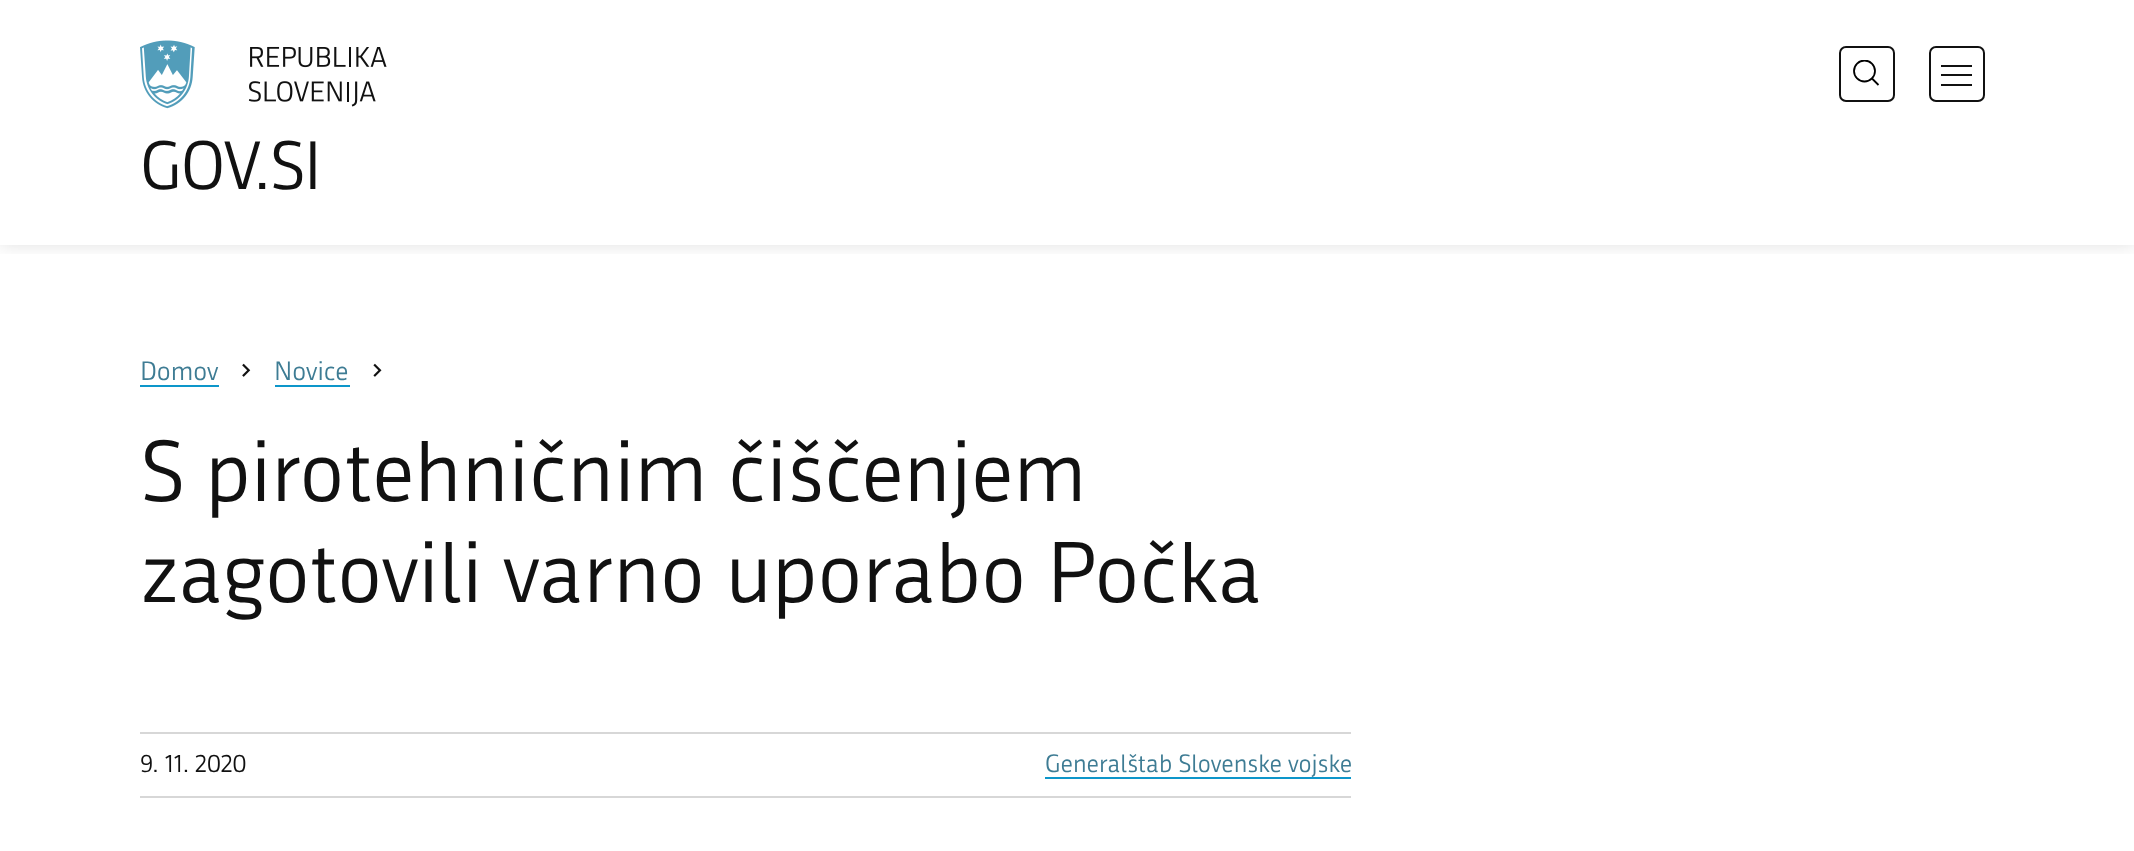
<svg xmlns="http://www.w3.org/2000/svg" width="2134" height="851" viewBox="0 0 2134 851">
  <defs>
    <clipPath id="clip1"><rect x="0" y="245" width="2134" height="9"/></clipPath>
    <clipPath id="clip2"><rect x="1853" y="60" width="27" height="26"/></clipPath>
  </defs>
  <rect width="100%" height="100%" fill="rgb(255,255,255)"/>
  <g clip-path="url(#clip1)">
    <rect x="0" y="0" width="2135" height="245" fill="rgba(0,0,0,0.12)" filter="blur(9px)"/>
  </g>
  <rect x="1840" y="47" width="54" height="54" rx="6" fill="none" stroke="rgb(17,17,17)" stroke-width="2"/>
  <g clip-path="url(#clip2)">
    <circle cx="1864.5" cy="71" r="10.5" fill="none" stroke="rgb(0,0,0)" stroke-width="1.8"/>
  </g>
  <path d="M1871.5 78L1878.5 85" fill="none" stroke="rgb(0,0,0)" stroke-width="1.8"/>
  <rect x="1930" y="47" width="54" height="54" rx="6" fill="none" stroke="rgb(17,17,17)" stroke-width="2"/>
  <rect x="1941" y="84" width="31" height="2" fill="rgb(17,17,17)"/>
  <rect x="1941" y="65" width="31" height="2" fill="rgb(17,17,17)"/>
  <rect x="1941" y="74" width="31" height="2" fill="rgb(17,17,17)"/>
  <image x="140" y="40" width="247" height="69" href="pic1.png"/>
  <text x="140" y="189" font-family="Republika" font-size="66.5" letter-spacing="-1.25" fill="rgb(17,17,17)">GOV.SI</text>
  <text x="140" y="380" font-family="Republika" font-size="26" fill="rgb(62,124,148)">Domov</text>
  <rect x="140" y="385" width="79" height="2" fill="rgb(13,150,202)"/>
  <image x="242" y="363" width="9" height="14" href="pic2.png"/>
  <text x="274" y="380" font-family="Republika" font-size="26" fill="rgb(62,124,148)">Novice</text>
  <rect x="275" y="385" width="75" height="2" fill="rgb(13,150,202)"/>
  <image x="373" y="363" width="9" height="14" href="pic3.png"/>
  <g font-family="Republika" font-size="84" fill="rgb(17,17,17)">
    <text>
      <tspan x="140" y="501">S pirotehničnim čiščenjem</tspan>
      <tspan x="140" y="602">zagotovili varno uporabo Počka</tspan>
    </text>
  </g>
  <rect x="140" y="732" width="1211" height="2" fill="rgb(215,215,215)"/>
  <rect x="140" y="796" width="1211" height="2" fill="rgb(215,215,215)"/>
  <text x="140" y="772" font-family="Republika" font-size="24.5" fill="rgb(17,17,17)">9. 11. 2020</text>
  <rect x="1045" y="777" width="306" height="2" fill="rgb(13,150,202)"/>
  <text x="1045" y="772" font-family="Republika" font-size="24.5" fill="rgb(62,124,148)">Generalštab Slovenske vojske</text>
</svg>
